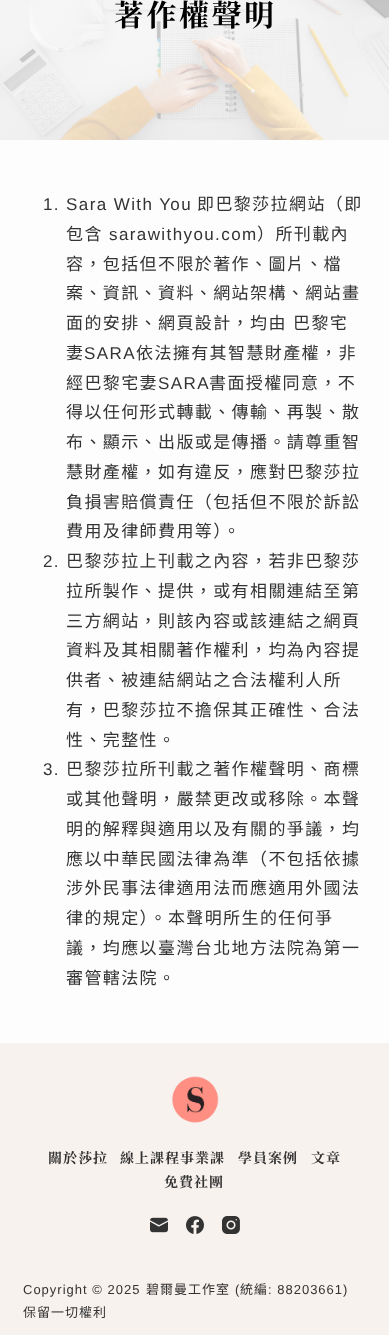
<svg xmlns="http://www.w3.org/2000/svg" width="389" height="1335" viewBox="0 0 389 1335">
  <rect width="100%" height="100%" fill="rgb(254,253,253)"/>
  <image x="0" y="0" width="389" height="140" href="pic1.png"/>
  <text x="114" y="26" font-family="Noto Serif TC" font-size="30" font-weight="bold" letter-spacing="2.5" fill="rgb(0,0,0)">著作權聲明</text>
  <text x="43" y="210" font-family="Liberation Sans" font-size="17" letter-spacing="1.4" fill="rgb(51,51,51)">1. Sara With You</text>
  <g font-family="Noto Sans CJK TC" font-size="17" letter-spacing="1.4" fill="rgb(51,51,51)">
    <text x="197" y="210">即巴黎莎拉網站（即</text>
    <text x="66" y="240">包含</text>
  </g>
  <text x="109" y="240" font-family="Liberation Sans" font-size="17" letter-spacing="1.4" fill="rgb(51,51,51)">sarawithyou.com</text>
  <g font-family="Noto Sans CJK TC" font-size="17" letter-spacing="1.4" fill="rgb(51,51,51)">
    <text x="257" y="240">）所刊載內</text>
    <text>
      <tspan x="66" y="270">容，包括但不限於著作、圖片、檔</tspan>
      <tspan x="66" y="299">案、資訊、資料、網站架構、網站畫</tspan>
      <tspan x="66" y="329" word-spacing="1">面的安排、網頁設計，均由 巴黎宅</tspan>
      <tspan x="66" y="359">妻</tspan>
    </text>
  </g>
  <text x="84" y="359" font-family="Liberation Sans" font-size="17" letter-spacing="1.4" fill="rgb(51,51,51)">SARA</text>
  <g font-family="Noto Sans CJK TC" font-size="17" letter-spacing="1.4" fill="rgb(51,51,51)">
    <text x="136" y="359">依法擁有其智慧財產權，非</text>
    <text x="66" y="389">經巴黎宅妻</text>
  </g>
  <text x="158" y="389" font-family="Liberation Sans" font-size="17" letter-spacing="1.4" fill="rgb(51,51,51)">SARA</text>
  <g font-family="Noto Sans CJK TC" font-size="17" letter-spacing="1.4" fill="rgb(51,51,51)">
    <text x="209" y="389">書面授權同意，不</text>
    <text>
      <tspan x="66" y="418">得以任何形式轉載、傳輸、再製、散</tspan>
      <tspan x="66" y="448">布、顯示、出版或是傳播。請尊重智</tspan>
      <tspan x="66" y="478">慧財產權，如有違反，應對巴黎莎拉</tspan>
      <tspan x="66" y="508">負損害賠償責任（包括但不限於訴訟</tspan>
      <tspan x="66" y="537">費用及律師費用等）。</tspan>
    </text>
  </g>
  <text x="43" y="567" font-family="Liberation Sans" font-size="17" letter-spacing="1.4" fill="rgb(51,51,51)">2.</text>
  <g font-family="Noto Sans CJK TC" font-size="17" letter-spacing="1.4" fill="rgb(51,51,51)">
    <text>
      <tspan x="66" y="567">巴黎莎拉上刊載之內容，若非巴黎莎</tspan>
      <tspan x="66" y="597">拉所製作、提供，或有相關連結至第</tspan>
      <tspan x="66" y="627">三方網站，則該內容或該連結之網頁</tspan>
      <tspan x="66" y="656">資料及其相關著作權利，均為內容提</tspan>
      <tspan x="66" y="686">供者、被連結網站之合法權利人所</tspan>
      <tspan x="66" y="716">有，巴黎莎拉不擔保其正確性、合法</tspan>
      <tspan x="66" y="746">性、完整性。</tspan>
    </text>
  </g>
  <text x="43" y="775" font-family="Liberation Sans" font-size="17" letter-spacing="1.4" fill="rgb(51,51,51)">3.</text>
  <g font-family="Noto Sans CJK TC" font-size="17" letter-spacing="1.4" fill="rgb(51,51,51)">
    <text>
      <tspan x="66" y="775">巴黎莎拉所刊載之著作權聲明、商標</tspan>
      <tspan x="66" y="805">或其他聲明，嚴禁更改或移除。本聲</tspan>
      <tspan x="66" y="835">明的解釋與適用以及有關的爭議，均</tspan>
      <tspan x="66" y="865">應以中華民國法律為準（不包括依據</tspan>
      <tspan x="66" y="894">涉外民事法律適用法而應適用外國法</tspan>
      <tspan x="66" y="924">律的規定）。本聲明所生的任何爭</tspan>
      <tspan x="66" y="954">議，均應以臺灣台北地方法院為第一</tspan>
      <tspan x="66" y="984">審管轄法院。</tspan>
    </text>
  </g>
  <rect x="0" y="1043" width="389" height="292" fill="rgb(248,242,238)"/>
  <image x="172" y="1076" width="47" height="47" href="pic2.png"/>
  <g font-family="Noto Serif TC" font-size="14" font-weight="bold" letter-spacing="1" fill="rgb(51,51,51)">
    <text x="48" y="1163">關於莎拉</text>
    <text x="120" y="1163">線上課程事業課</text>
    <text x="238" y="1163">學員案例</text>
    <text x="311" y="1163">文章</text>
    <text x="164" y="1187">免費社團</text>
  </g>
  <image x="150" y="1217" width="18" height="16" href="pic3.png"/>
  <image x="186" y="1216" width="18" height="18" href="pic4.png"/>
  <image x="222" y="1216" width="18" height="18" href="pic5.png"/>
  <text x="23" y="1294" font-family="Liberation Sans" font-size="13" letter-spacing="1" fill="rgb(51,51,51)">Copyright © 2025</text>
  <text x="146" y="1294" font-family="Noto Sans CJK TC" font-size="13" letter-spacing="1" fill="rgb(51,51,51)">碧爾曼工作室</text>
  <text x="235" y="1294" font-family="Liberation Sans" font-size="13" letter-spacing="1" fill="rgb(51,51,51)">(</text>
  <text x="240" y="1294" font-family="Noto Sans CJK TC" font-size="13" letter-spacing="1" fill="rgb(51,51,51)">統編</text>
  <text x="268" y="1294" font-family="Liberation Sans" font-size="13" letter-spacing="1" fill="rgb(51,51,51)">: 88203661)</text>
  <text x="23" y="1317" font-family="Noto Sans CJK TC" font-size="13" letter-spacing="1" fill="rgb(51,51,51)">保留一切權利</text>
</svg>
